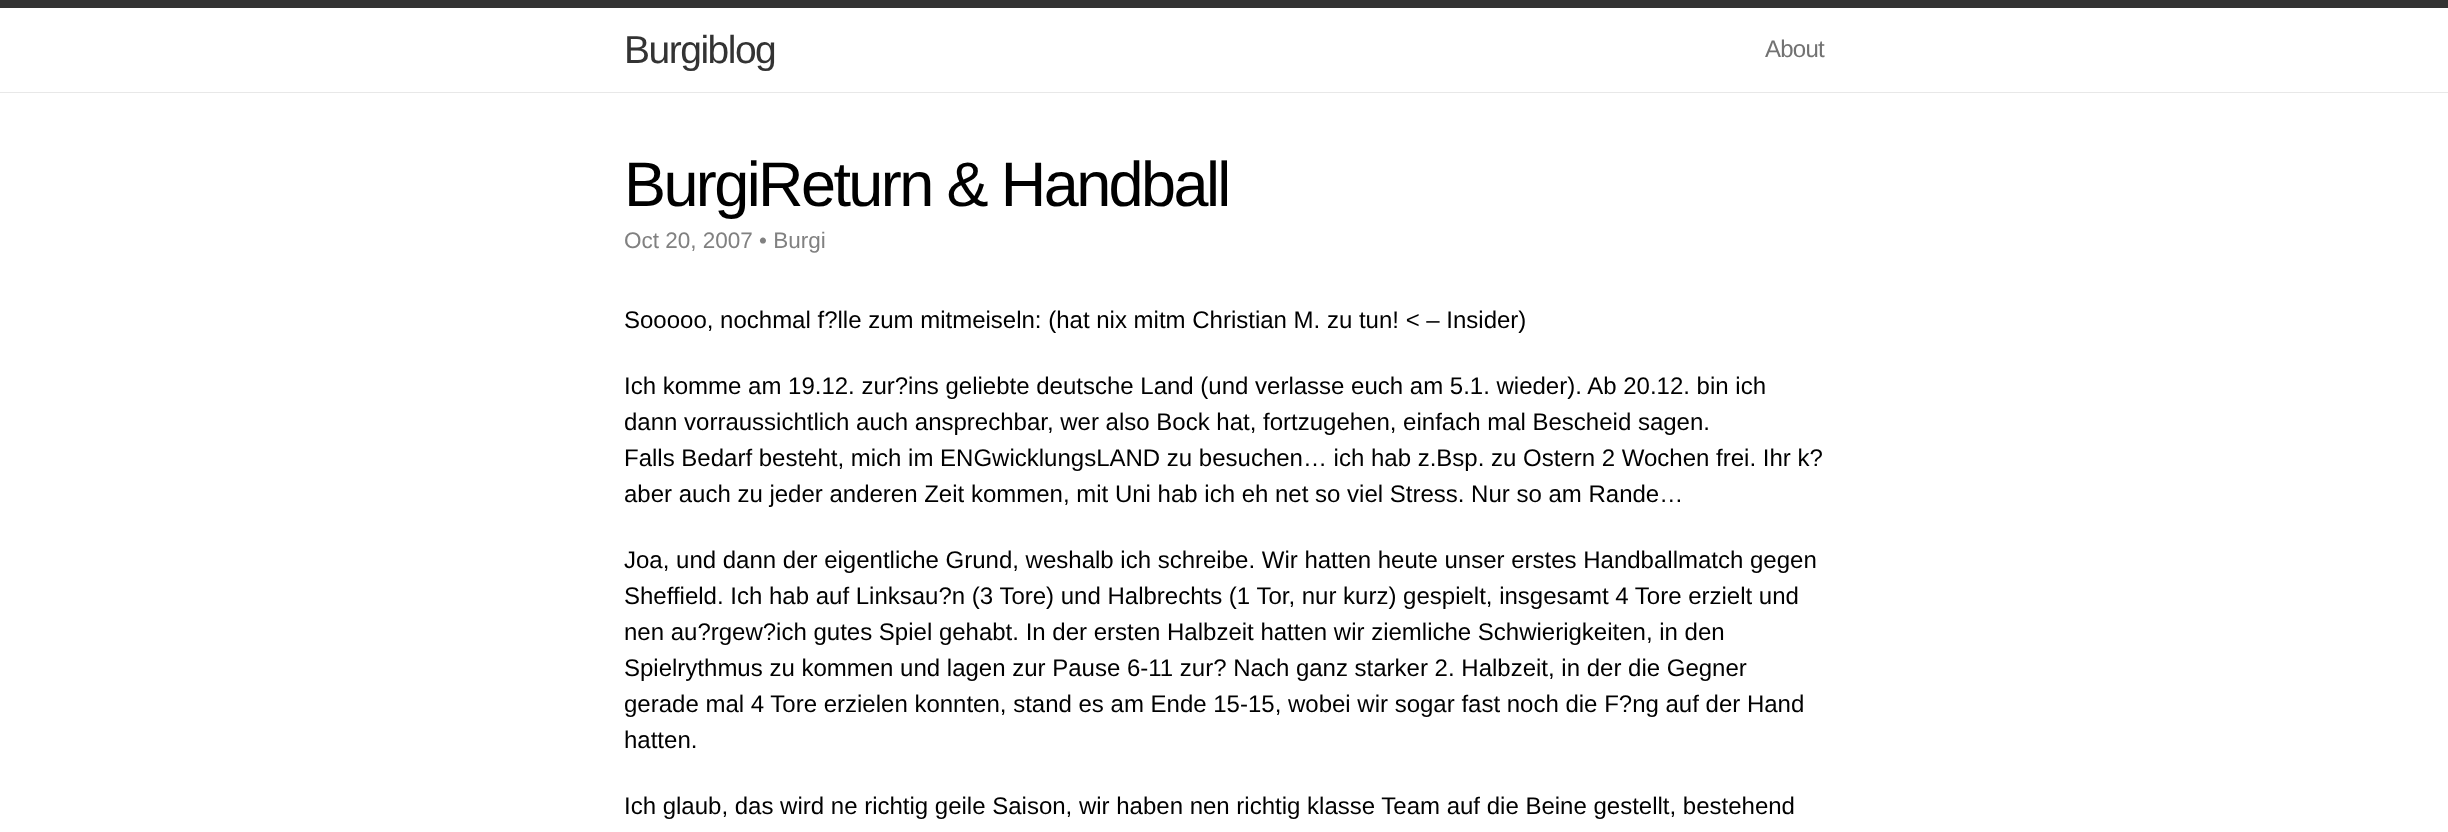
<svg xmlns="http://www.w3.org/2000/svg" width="2448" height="832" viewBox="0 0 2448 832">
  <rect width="100%" height="100%" fill="rgb(255,255,255)"/>
  <rect x="0" y="0" width="2448" height="8" fill="rgb(51,51,51)"/>
  <rect x="0" y="92" width="2448" height="1" fill="rgb(232,232,232)"/>
  <text x="624" y="63" font-family="Liberation Sans" font-size="39" letter-spacing="-1.5" fill="rgb(51,51,51)">Burgiblog</text>
  <text x="1765" y="57" font-family="Liberation Sans" font-size="24" letter-spacing="-0.75" fill="rgb(114,114,114)">About</text>
  <text x="624" y="206" font-family="Liberation Sans" font-size="63" letter-spacing="-2.6" fill="rgb(0,0,0)">BurgiReturn &amp; Handball</text>
  <text x="624" y="248" font-family="Liberation Sans" font-size="22.5" fill="rgb(129,129,129)">Oct 20, 2007 • Burgi</text>
  <g font-family="Liberation Sans" font-size="24" fill="rgb(0,0,0)">
    <text x="624" y="328">Sooooo, nochmal f?lle zum mitmeiseln: (hat nix mitm Christian M. zu tun! &lt; – Insider)</text>
    <text>
      <tspan x="624" y="394">Ich komme am 19.12. zur?ins geliebte deutsche Land (und verlasse euch am 5.1. wieder). Ab 20.12. bin ich</tspan>
      <tspan x="624" y="430">dann vorraussichtlich auch ansprechbar, wer also Bock hat, fortzugehen, einfach mal Bescheid sagen.</tspan>
      <tspan x="624" y="466">Falls Bedarf besteht, mich im ENGwicklungsLAND zu besuchen… ich hab z.Bsp. zu Ostern 2 Wochen frei. Ihr k?</tspan>
      <tspan x="624" y="502">aber auch zu jeder anderen Zeit kommen, mit Uni hab ich eh net so viel Stress. Nur so am Rande…</tspan>
    </text>
    <text>
      <tspan x="624" y="568">Joa, und dann der eigentliche Grund, weshalb ich schreibe. Wir hatten heute unser erstes Handballmatch gegen</tspan>
      <tspan x="624" y="604">Sheffield. Ich hab auf Linksau?n (3 Tore) und Halbrechts (1 Tor, nur kurz) gespielt, insgesamt 4 Tore erzielt und</tspan>
      <tspan x="624" y="640">nen au?rgew?ich gutes Spiel gehabt. In der ersten Halbzeit hatten wir ziemliche Schwierigkeiten, in den</tspan>
      <tspan x="624" y="676">Spielrythmus zu kommen und lagen zur Pause 6-11 zur? Nach ganz starker 2. Halbzeit, in der die Gegner</tspan>
      <tspan x="624" y="712">gerade mal 4 Tore erzielen konnten, stand es am Ende 15-15, wobei wir sogar fast noch die F?ng auf der Hand</tspan>
      <tspan x="624" y="748">hatten.</tspan>
    </text>
    <text x="624" y="814">Ich glaub, das wird ne richtig geile Saison, wir haben nen richtig klasse Team auf die Beine gestellt, bestehend</text>
  </g>
</svg>
